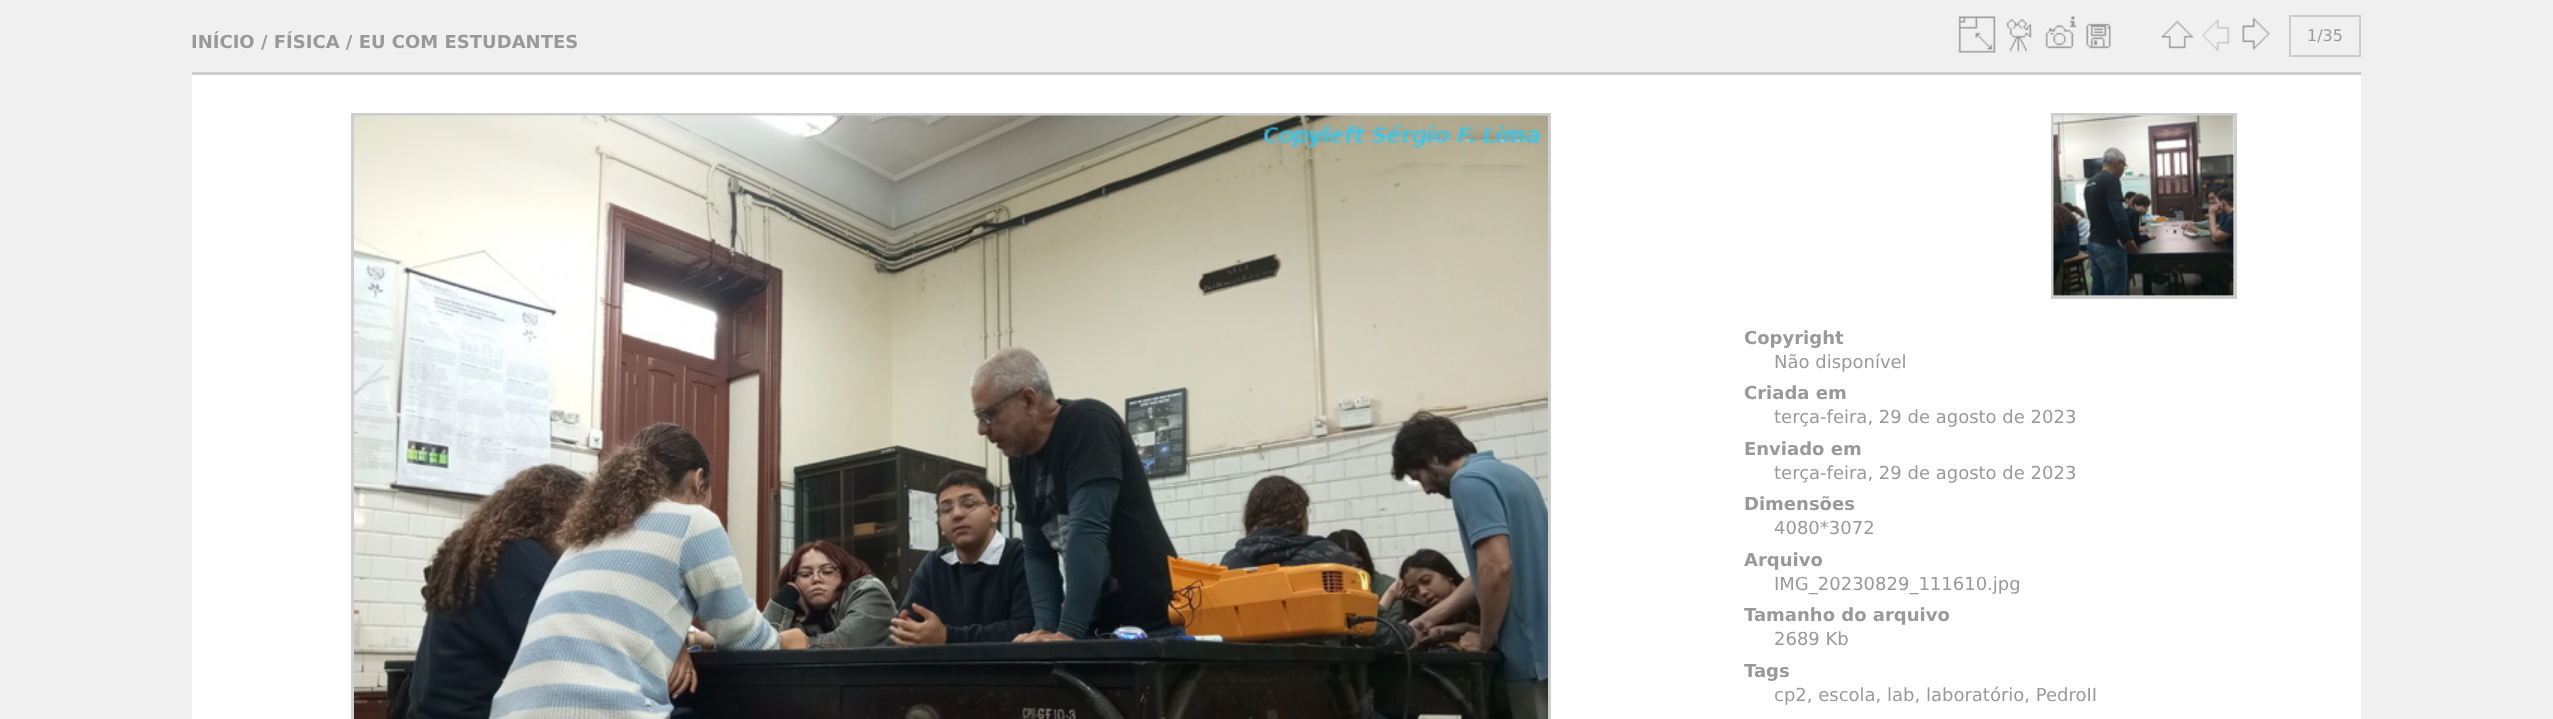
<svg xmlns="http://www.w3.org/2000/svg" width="2553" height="719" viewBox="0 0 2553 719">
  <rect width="100%" height="100%" fill="rgb(240,240,240)"/>
  <text x="191" y="48" font-family="DejaVu Sans" font-size="18" font-weight="bold" fill="rgb(153,153,153)">INÍCIO / FÍSICA / EU COM ESTUDANTES</text>
  <image x="1958" y="16" width="38" height="37" href="pic1.png"/>
  <image x="2006" y="19" width="26" height="33" href="pic2.png"/>
  <image x="2045" y="16" width="32" height="33" href="pic3.png"/>
  <image x="2086" y="23" width="25" height="26" href="pic4.png"/>
  <image x="2161" y="20" width="33" height="29" href="pic5.png"/>
  <image x="2201" y="19" width="29" height="33" href="pic6.png"/>
  <image x="2242" y="17" width="28" height="33" href="pic7.png"/>
  <rect x="2290" y="16" width="70" height="40" fill="none" stroke="rgb(205,205,205)" stroke-width="2"/>
  <text x="2307" y="41" font-family="DejaVu Sans" font-size="16" fill="rgb(153,153,153)">1/35</text>
  <rect x="192" y="75" width="2169" height="644" fill="rgb(255,255,255)"/>
  <rect x="192" y="72" width="2169" height="3" fill="rgb(205,205,205)"/>
  <rect x="352.5" y="114.5" width="1197" height="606" fill="none" stroke="rgb(205,205,205)" stroke-width="3"/>
  <image x="354" y="115" width="1194" height="604" href="pic8.png"/>
  <rect x="2052.5" y="114.5" width="183" height="183" fill="none" stroke="rgb(205,205,205)" stroke-width="3"/>
  <image x="2053" y="115" width="181" height="181" href="pic9.png"/>
  <text x="1744" y="344" font-family="DejaVu Sans" font-size="18" font-weight="bold" fill="rgb(153,153,153)">Copyright</text>
  <text x="1774" y="368" font-family="DejaVu Sans" font-size="18" fill="rgb(153,153,153)">Não disponível</text>
  <text x="1744" y="399" font-family="DejaVu Sans" font-size="18" font-weight="bold" fill="rgb(153,153,153)">Criada em</text>
  <text x="1774" y="423" font-family="DejaVu Sans" font-size="18" fill="rgb(153,153,153)">terça-feira, 29 de agosto de 2023</text>
  <text x="1744" y="455" font-family="DejaVu Sans" font-size="18" font-weight="bold" fill="rgb(153,153,153)">Enviado em</text>
  <text x="1774" y="479" font-family="DejaVu Sans" font-size="18" fill="rgb(153,153,153)">terça-feira, 29 de agosto de 2023</text>
  <text x="1744" y="510" font-family="DejaVu Sans" font-size="18" font-weight="bold" fill="rgb(153,153,153)">Dimensões</text>
  <text x="1774" y="534" font-family="DejaVu Sans" font-size="18" fill="rgb(153,153,153)">4080*3072</text>
  <text x="1744" y="566" font-family="DejaVu Sans" font-size="18" font-weight="bold" fill="rgb(153,153,153)">Arquivo</text>
  <text x="1774" y="590" font-family="DejaVu Sans" font-size="18" fill="rgb(153,153,153)">IMG_20230829_111610.jpg</text>
  <text x="1744" y="621" font-family="DejaVu Sans" font-size="18" font-weight="bold" fill="rgb(153,153,153)">Tamanho do arquivo</text>
  <text x="1774" y="645" font-family="DejaVu Sans" font-size="18" fill="rgb(153,153,153)">2689 Kb</text>
  <text x="1744" y="677" font-family="DejaVu Sans" font-size="18" font-weight="bold" fill="rgb(153,153,153)">Tags</text>
  <text x="1774" y="701" font-family="DejaVu Sans" font-size="18" fill="rgb(153,153,153)">cp2, escola, lab, laboratório, PedroII</text>
</svg>
